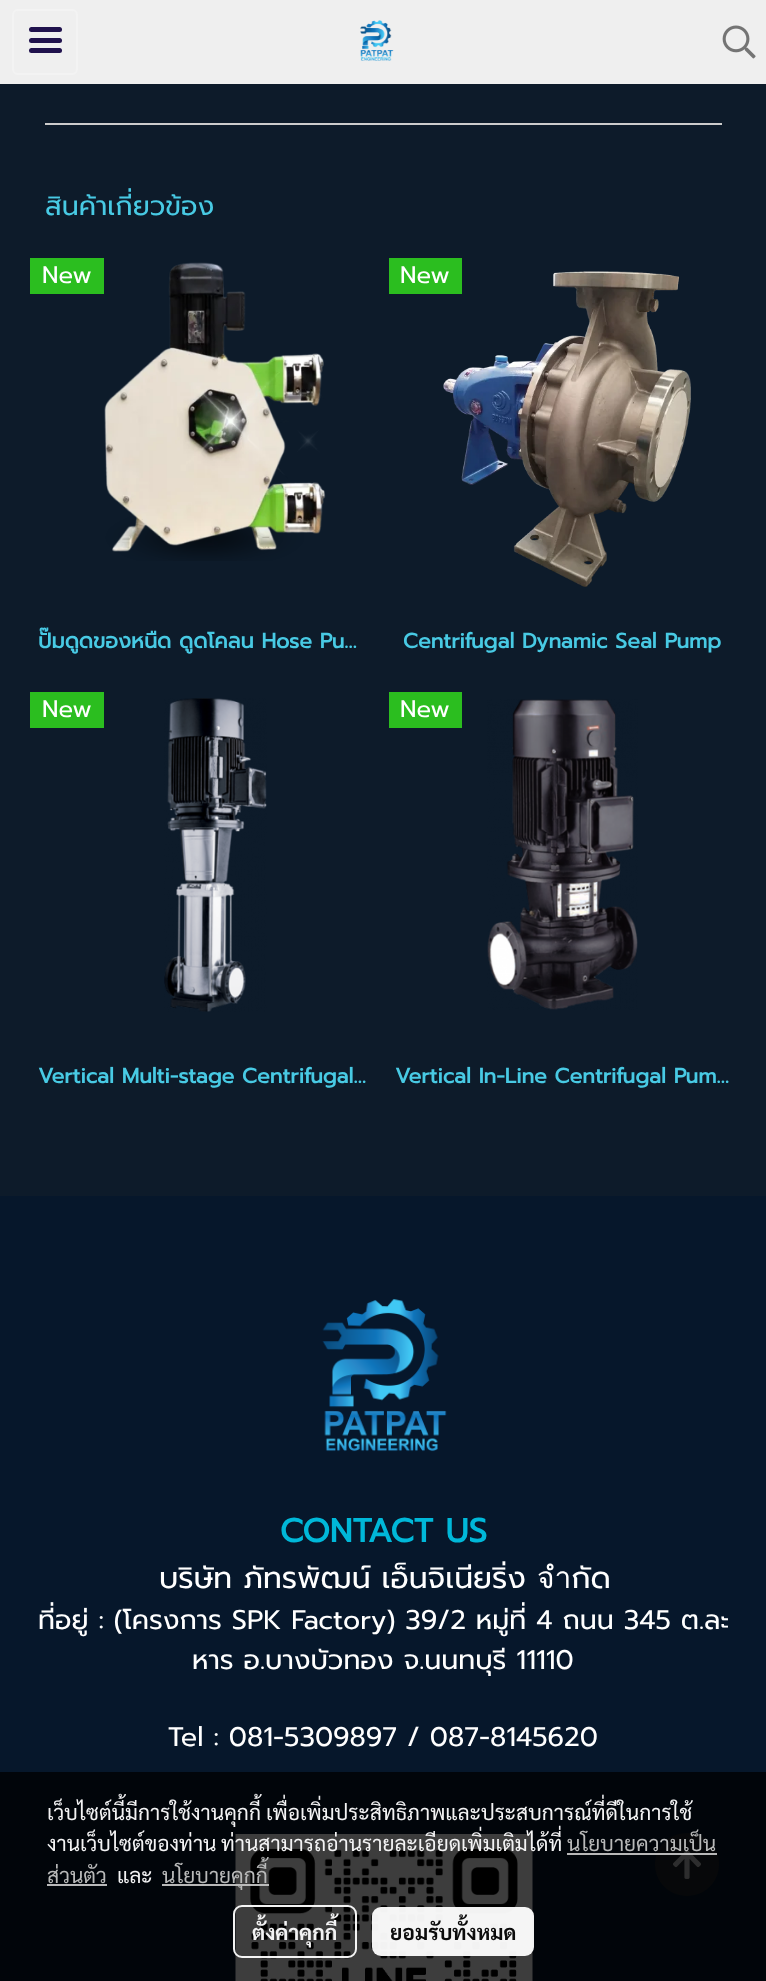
<svg xmlns="http://www.w3.org/2000/svg" width="766" height="1981" viewBox="0 0 766 1981">
  <defs>
    <clipPath id="clip1"><rect x="38" y="620" width="334" height="42"/></clipPath>
  </defs>
  <rect width="100%" height="100%" fill="rgb(13,27,42)"/>
  <rect x="0" y="0" width="766" height="84" fill="rgb(239,239,239)"/>
  <rect x="13" y="10" width="64" height="64" rx="5" fill="none" stroke="rgb(243,243,243)" stroke-width="2"/>
  <rect x="29" y="38" width="33" height="5" rx="2.5" fill="rgb(32,18,77)"/>
  <rect x="29" y="27" width="33" height="5" rx="2.5" fill="rgb(32,18,77)"/>
  <rect x="29" y="48" width="33" height="5" rx="2.5" fill="rgb(32,18,77)"/>
  <image x="360" y="20" width="34" height="41" href="pic1.png"/>
  <image x="722" y="25" width="34" height="34" href="pic2.png"/>
  <rect x="45" y="123" width="677" height="2" fill="rgb(204,204,204)"/>
  <text x="45" y="215" font-family="Prompt" font-size="27" fill="rgb(72,202,228)">สินค้าเกี่ยวข้อง</text>
  <rect x="30" y="258" width="74" height="36" fill="rgb(43,190,31)"/>
  <text x="42" y="283" font-family="Prompt" font-size="24" fill="rgb(255,255,255)">New</text>
  <image x="104" y="262" width="222" height="299" href="pic3.png"/>
  <g clip-path="url(#clip1)">
    <text x="38" y="648" font-family="Prompt" font-size="21" font-weight="bold" fill="rgb(72,202,228)">ปั๊มดูดของหนืด ดูดโคลน Hose Pu…</text>
  </g>
  <image x="443" y="271" width="248" height="316" href="pic4.png"/>
  <rect x="389" y="258" width="73" height="36" fill="rgb(43,190,31)"/>
  <text x="400" y="283" font-family="Prompt" font-size="24" fill="rgb(255,255,255)">New</text>
  <text x="403" y="648" font-family="Prompt" font-size="21" font-weight="bold" fill="rgb(72,202,228)">Centrifugal Dynamic Seal Pump</text>
  <rect x="30" y="692" width="74" height="36" fill="rgb(43,190,31)"/>
  <text x="42" y="717" font-family="Prompt" font-size="24" fill="rgb(255,255,255)">New</text>
  <image x="164" y="698" width="103" height="314" href="pic5.png"/>
  <text x="38" y="1083" font-family="Prompt" font-size="21" font-weight="bold" fill="rgb(72,202,228)">Vertical Multi-stage Centrifugal…</text>
  <rect x="389" y="692" width="73" height="36" fill="rgb(43,190,31)"/>
  <text x="400" y="717" font-family="Prompt" font-size="24" fill="rgb(255,255,255)">New</text>
  <image x="487" y="699" width="151" height="311" href="pic6.png"/>
  <text x="395" y="1083" font-family="Prompt" font-size="21" font-weight="bold" fill="rgb(72,202,228)">Vertical In-Line Centrifugal Pum…</text>
  <rect x="0" y="1196" width="766" height="785" fill="rgb(6,23,43)"/>
  <image x="322" y="1299" width="125" height="153" href="pic7.png"/>
  <text x="280" y="1542" font-family="Prompt" font-size="33" font-weight="bold" fill="rgb(0,184,217)">CONTACT US</text>
  <text x="159" y="1588" font-family="Prompt" font-size="30" fill="rgb(255,255,255)">บริษัท ภัทรพัฒน์ เอ็นจิเนียริ่ง จำกัด</text>
  <g font-family="Prompt" font-size="27" fill="rgb(255,255,255)">
    <text x="38" y="1629">ที่อยู่ : (โครงการ SPK Factory) 39/2 หมู่ที่ 4 ถนน 345 ต.ละ</text>
    <text x="192" y="1669">หาร อ.บางบัวทอง จ.นนทบุรี 11110</text>
    <text x="168" y="1746">Tel : 081-5309897 / 087-8145620</text>
  </g>
  <image x="235" y="1834" width="298" height="147" href="pic8.png"/>
  <path d="M687 1833C669 1833 655 1847 655 1864C655 1882 669 1896 687 1896C705 1896 719 1882 719 1864C719 1847 705 1833 687 1833Z" fill="rgb(32,36,42)"/>
  <image x="673" y="1850" width="28" height="29" href="pic9.png"/>
  <rect x="0" y="1772" width="766" height="209" fill="rgba(0,0,0,0.76)"/>
  <g font-family="Sarabun" font-size="21" fill="rgb(243,243,244)">
    <text>
      <tspan x="47" y="1820">เว็บไซต์นี้มีการใช้งานคุกกี้ เพื่อเพิ่มประสิทธิภาพและประสบการณ์ที่ดีในการใช้</tspan>
      <tspan x="47" y="1851">งานเว็บไซต์ของท่าน</tspan>
    </text>
    <text x="221" y="1851">ท่านสามารถอ่านรายละเอียดเพิ่มเติมได้ที่</text>
  </g>
  <text x="567" y="1851" font-family="Sarabun" font-size="21" fill="rgb(184,185,185)">นโยบายความเป็น</text>
  <rect x="567" y="1853" width="150" height="2" fill="rgba(194,194,194,0.95)"/>
  <text x="47" y="1883" font-family="Sarabun" font-size="21" fill="rgb(184,185,185)">ส่วนตัว</text>
  <rect x="47" y="1884" width="60" height="2" fill="rgb(185,185,186)"/>
  <text x="117" y="1883" font-family="Sarabun" font-size="21" fill="rgb(243,243,244)">และ</text>
  <rect x="162" y="1884" width="107" height="2" fill="rgba(194,194,194,0.95)"/>
  <text x="162" y="1883" font-family="Sarabun" font-size="21" fill="rgb(184,185,185)">นโยบายคุกกี้</text>
  <rect x="234" y="1906" width="122" height="51" rx="8" fill="none" stroke="rgba(255,255,255,0.95)" stroke-width="2"/>
  <text x="252" y="1940" font-family="Sarabun" font-size="21" font-weight="bold" fill="rgb(243,243,244)">ตั้งค่าคุกกี้</text>
  <rect x="372" y="1907" width="162" height="49" rx="9" fill="rgba(255,255,255,0.95)"/>
  <text x="390" y="1940" font-family="Sarabun" font-size="21" font-weight="bold" fill="rgb(12,12,12)">ยอมรับทั้งหมด</text>
</svg>
